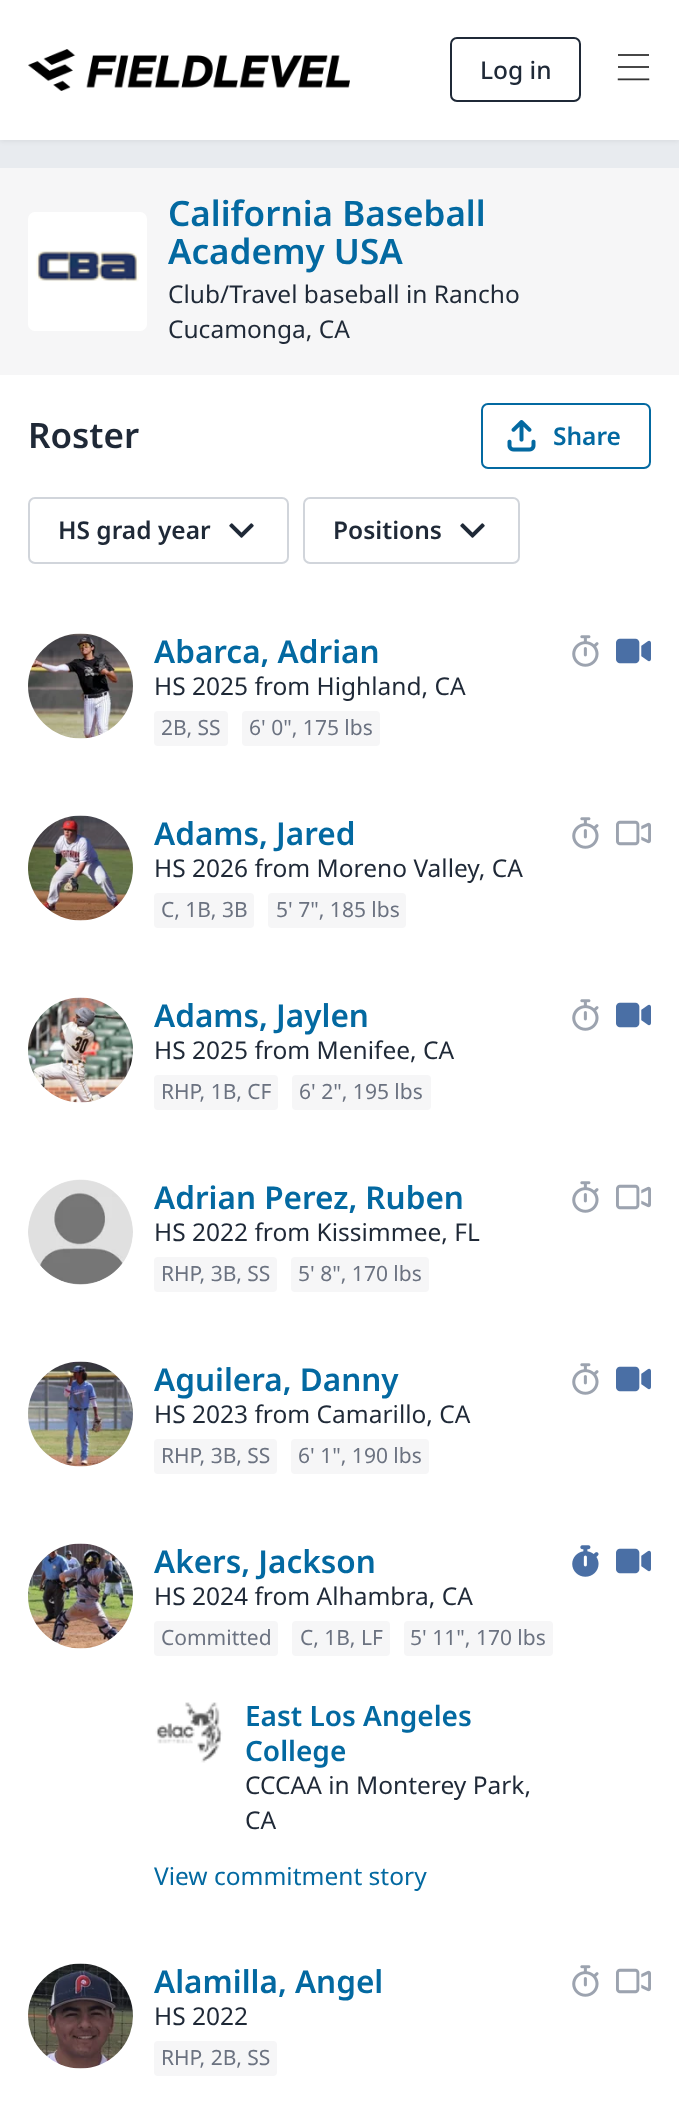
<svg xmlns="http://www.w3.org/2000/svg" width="679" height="2105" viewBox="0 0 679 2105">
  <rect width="100%" height="100%" fill="rgb(232,235,239)"/>
  <rect x="0" y="2" width="679" height="140" fill="rgba(0,0,0,0.05)" filter="blur(2px)"/>
  <rect x="0" y="0" width="679" height="140" fill="rgb(255,255,255)"/>
  <image x="28" y="49" width="322" height="42" href="pic1.png"/>
  <rect x="451" y="38" width="129" height="63" rx="6" fill="none" stroke="rgb(31,41,55)" stroke-width="2"/>
  <text x="480" y="79" font-family="Noto Sans" font-size="24.5" font-weight="500" fill="rgb(31,41,55)">Log in</text>
  <image x="617" y="54" width="33" height="27" href="pic2.png"/>
  <rect x="0" y="168" width="679" height="207" fill="rgb(246,246,247)"/>
  <rect x="28" y="212" width="119" height="119" rx="7" fill="rgb(255,255,255)"/>
  <image x="36" y="250" width="103" height="32" href="pic3.png"/>
  <g font-family="Noto Sans" font-size="35" font-weight="600" fill="rgb(3,105,161)">
    <text>
      <tspan x="168" y="226">California Baseball</tspan>
      <tspan x="168" y="264">Academy USA</tspan>
    </text>
  </g>
  <g font-family="Noto Sans" font-size="24.5" fill="rgb(31,41,55)">
    <text>
      <tspan x="168" y="303">Club/Travel baseball in Rancho</tspan>
      <tspan x="168" y="338">Cucamonga, CA</tspan>
    </text>
  </g>
  <rect x="0" y="375" width="679" height="1730" fill="rgb(255,255,255)"/>
  <text x="28" y="448" font-family="Noto Sans" font-size="35" font-weight="600" fill="rgb(31,41,55)">Roster</text>
  <rect x="482" y="404" width="168" height="64" rx="6" fill="none" stroke="rgb(3,105,161)" stroke-width="2"/>
  <image x="507" y="420" width="29" height="32" href="pic4.png"/>
  <text x="553" y="445" font-family="Noto Sans" font-size="24.5" font-weight="600" fill="rgb(3,105,161)">Share</text>
  <rect x="29" y="498" width="259" height="65" rx="6" fill="none" stroke="rgb(209,213,219)" stroke-width="2"/>
  <text x="58" y="539" font-family="Noto Sans" font-size="24.5" font-weight="600" fill="rgb(31,41,55)">HS grad year</text>
  <image x="229" y="523" width="25" height="15" href="pic5.png"/>
  <rect x="304" y="498" width="215" height="65" rx="6" fill="none" stroke="rgb(209,213,219)" stroke-width="2"/>
  <text x="333" y="539" font-family="Noto Sans" font-size="24.5" font-weight="600" fill="rgb(31,41,55)">Positions</text>
  <image x="460" y="523" width="25" height="15" href="pic5.png"/>
  <image x="28" y="633" width="105" height="106" href="pic6.png"/>
  <text x="154" y="663" font-family="Noto Sans" font-size="31.5" font-weight="600" fill="rgb(3,105,161)">Abarca, Adrian</text>
  <text x="154" y="695" font-family="Noto Sans" font-size="24.5" fill="rgb(31,41,55)">HS 2025 from Highland, CA</text>
  <rect x="154" y="711" width="74" height="35" rx="4" fill="rgb(246,246,247)"/>
  <text x="161" y="735" font-family="Noto Sans" font-size="21" fill="rgb(107,114,128)">2B, SS</text>
  <rect x="242" y="711" width="138" height="35" rx="4" fill="rgb(246,246,247)"/>
  <text x="249" y="735" font-family="Noto Sans" font-size="21" fill="rgb(107,114,128)">6' 0", 175 lbs</text>
  <image x="572" y="635" width="27" height="32" href="pic7.png"/>
  <image x="616" y="638" width="35" height="26" href="pic8.png"/>
  <image x="28" y="815" width="105" height="106" href="pic9.png"/>
  <text x="154" y="845" font-family="Noto Sans" font-size="31.5" font-weight="600" fill="rgb(3,105,161)">Adams, Jared</text>
  <text x="154" y="877" font-family="Noto Sans" font-size="24.5" fill="rgb(31,41,55)">HS 2026 from Moreno Valley, CA</text>
  <rect x="154" y="893" width="100" height="35" rx="4" fill="rgb(246,246,247)"/>
  <text x="161" y="917" font-family="Noto Sans" font-size="21" fill="rgb(107,114,128)">C, 1B, 3B</text>
  <rect x="268" y="893" width="138" height="35" rx="4" fill="rgb(246,246,247)"/>
  <text x="276" y="917" font-family="Noto Sans" font-size="21" fill="rgb(107,114,128)">5' 7", 185 lbs</text>
  <image x="572" y="817" width="27" height="32" href="pic7.png"/>
  <image x="616" y="820" width="35" height="26" href="pic10.png"/>
  <image x="28" y="997" width="105" height="106" href="pic11.png"/>
  <text x="154" y="1027" font-family="Noto Sans" font-size="31.5" font-weight="600" fill="rgb(3,105,161)">Adams, Jaylen</text>
  <text x="154" y="1059" font-family="Noto Sans" font-size="24.5" fill="rgb(31,41,55)">HS 2025 from Menifee, CA</text>
  <rect x="154" y="1075" width="124" height="35" rx="4" fill="rgb(246,246,247)"/>
  <text x="161" y="1099" font-family="Noto Sans" font-size="21" fill="rgb(107,114,128)">RHP, 1B, CF</text>
  <rect x="292" y="1075" width="139" height="35" rx="4" fill="rgb(246,246,247)"/>
  <text x="299" y="1099" font-family="Noto Sans" font-size="21" fill="rgb(107,114,128)">6' 2", 195 lbs</text>
  <image x="572" y="999" width="27" height="32" href="pic7.png"/>
  <image x="616" y="1002" width="35" height="26" href="pic8.png"/>
  <image x="28" y="1179" width="105" height="106" href="pic12.png"/>
  <text x="154" y="1209" font-family="Noto Sans" font-size="31.5" font-weight="600" fill="rgb(3,105,161)">Adrian Perez, Ruben</text>
  <text x="154" y="1241" font-family="Noto Sans" font-size="24.5" fill="rgb(31,41,55)">HS 2022 from Kissimmee, FL</text>
  <rect x="154" y="1257" width="123" height="35" rx="4" fill="rgb(246,246,247)"/>
  <text x="161" y="1281" font-family="Noto Sans" font-size="21" fill="rgb(107,114,128)">RHP, 3B, SS</text>
  <rect x="291" y="1257" width="138" height="35" rx="4" fill="rgb(246,246,247)"/>
  <text x="298" y="1281" font-family="Noto Sans" font-size="21" fill="rgb(107,114,128)">5' 8", 170 lbs</text>
  <image x="572" y="1181" width="27" height="32" href="pic7.png"/>
  <image x="616" y="1184" width="35" height="26" href="pic10.png"/>
  <image x="28" y="1361" width="105" height="106" href="pic13.png"/>
  <text x="154" y="1391" font-family="Noto Sans" font-size="31.5" font-weight="600" fill="rgb(3,105,161)">Aguilera, Danny</text>
  <text x="154" y="1423" font-family="Noto Sans" font-size="24.5" fill="rgb(31,41,55)">HS 2023 from Camarillo, CA</text>
  <rect x="154" y="1439" width="123" height="35" rx="4" fill="rgb(246,246,247)"/>
  <text x="161" y="1463" font-family="Noto Sans" font-size="21" fill="rgb(107,114,128)">RHP, 3B, SS</text>
  <rect x="291" y="1439" width="138" height="35" rx="4" fill="rgb(246,246,247)"/>
  <text x="298" y="1463" font-family="Noto Sans" font-size="21" fill="rgb(107,114,128)">6' 1", 190 lbs</text>
  <image x="572" y="1363" width="27" height="32" href="pic7.png"/>
  <image x="616" y="1366" width="35" height="26" href="pic8.png"/>
  <image x="28" y="1543" width="105" height="106" href="pic14.png"/>
  <text x="154" y="1573" font-family="Noto Sans" font-size="31.5" font-weight="600" fill="rgb(3,105,161)">Akers, Jackson</text>
  <text x="154" y="1605" font-family="Noto Sans" font-size="24.5" fill="rgb(31,41,55)">HS 2024 from Alhambra, CA</text>
  <rect x="154" y="1621" width="124" height="35" rx="4" fill="rgb(246,246,247)"/>
  <text x="161" y="1645" font-family="Noto Sans" font-size="21" fill="rgb(107,114,128)">Committed</text>
  <rect x="292" y="1621" width="98" height="35" rx="4" fill="rgb(246,246,247)"/>
  <text x="300" y="1645" font-family="Noto Sans" font-size="21" fill="rgb(107,114,128)">C, 1B, LF</text>
  <rect x="404" y="1621" width="149" height="35" rx="4" fill="rgb(246,246,247)"/>
  <text x="410" y="1645" font-family="Noto Sans" font-size="21" fill="rgb(107,114,128)">5' 11", 170 lbs</text>
  <image x="155" y="1702" width="68" height="61" href="pic15.png"/>
  <g font-family="Noto Sans" font-size="28" font-weight="600" fill="rgb(3,105,161)">
    <text>
      <tspan x="245" y="1726">East Los Angeles</tspan>
      <tspan x="245" y="1761">College</tspan>
    </text>
  </g>
  <g font-family="Noto Sans" font-size="24.5" fill="rgb(31,41,55)">
    <text>
      <tspan x="245" y="1794">CCCAA in Monterey Park,</tspan>
      <tspan x="245" y="1829">CA</tspan>
    </text>
  </g>
  <text x="154" y="1885" font-family="Noto Sans" font-size="24.5" fill="rgb(3,105,161)">View commitment story</text>
  <image x="572" y="1545" width="27" height="32" href="pic16.png"/>
  <image x="616" y="1548" width="35" height="26" href="pic8.png"/>
  <image x="28" y="1963" width="105" height="106" href="pic17.png"/>
  <text x="154" y="1993" font-family="Noto Sans" font-size="31.5" font-weight="600" fill="rgb(3,105,161)">Alamilla, Angel</text>
  <text x="154" y="2025" font-family="Noto Sans" font-size="24.5" fill="rgb(31,41,55)">HS 2022</text>
  <rect x="154" y="2041" width="123" height="35" rx="4" fill="rgb(246,246,247)"/>
  <text x="161" y="2065" font-family="Noto Sans" font-size="21" fill="rgb(107,114,128)">RHP, 2B, SS</text>
  <image x="572" y="1965" width="27" height="32" href="pic7.png"/>
  <image x="616" y="1968" width="35" height="26" href="pic10.png"/>
</svg>
